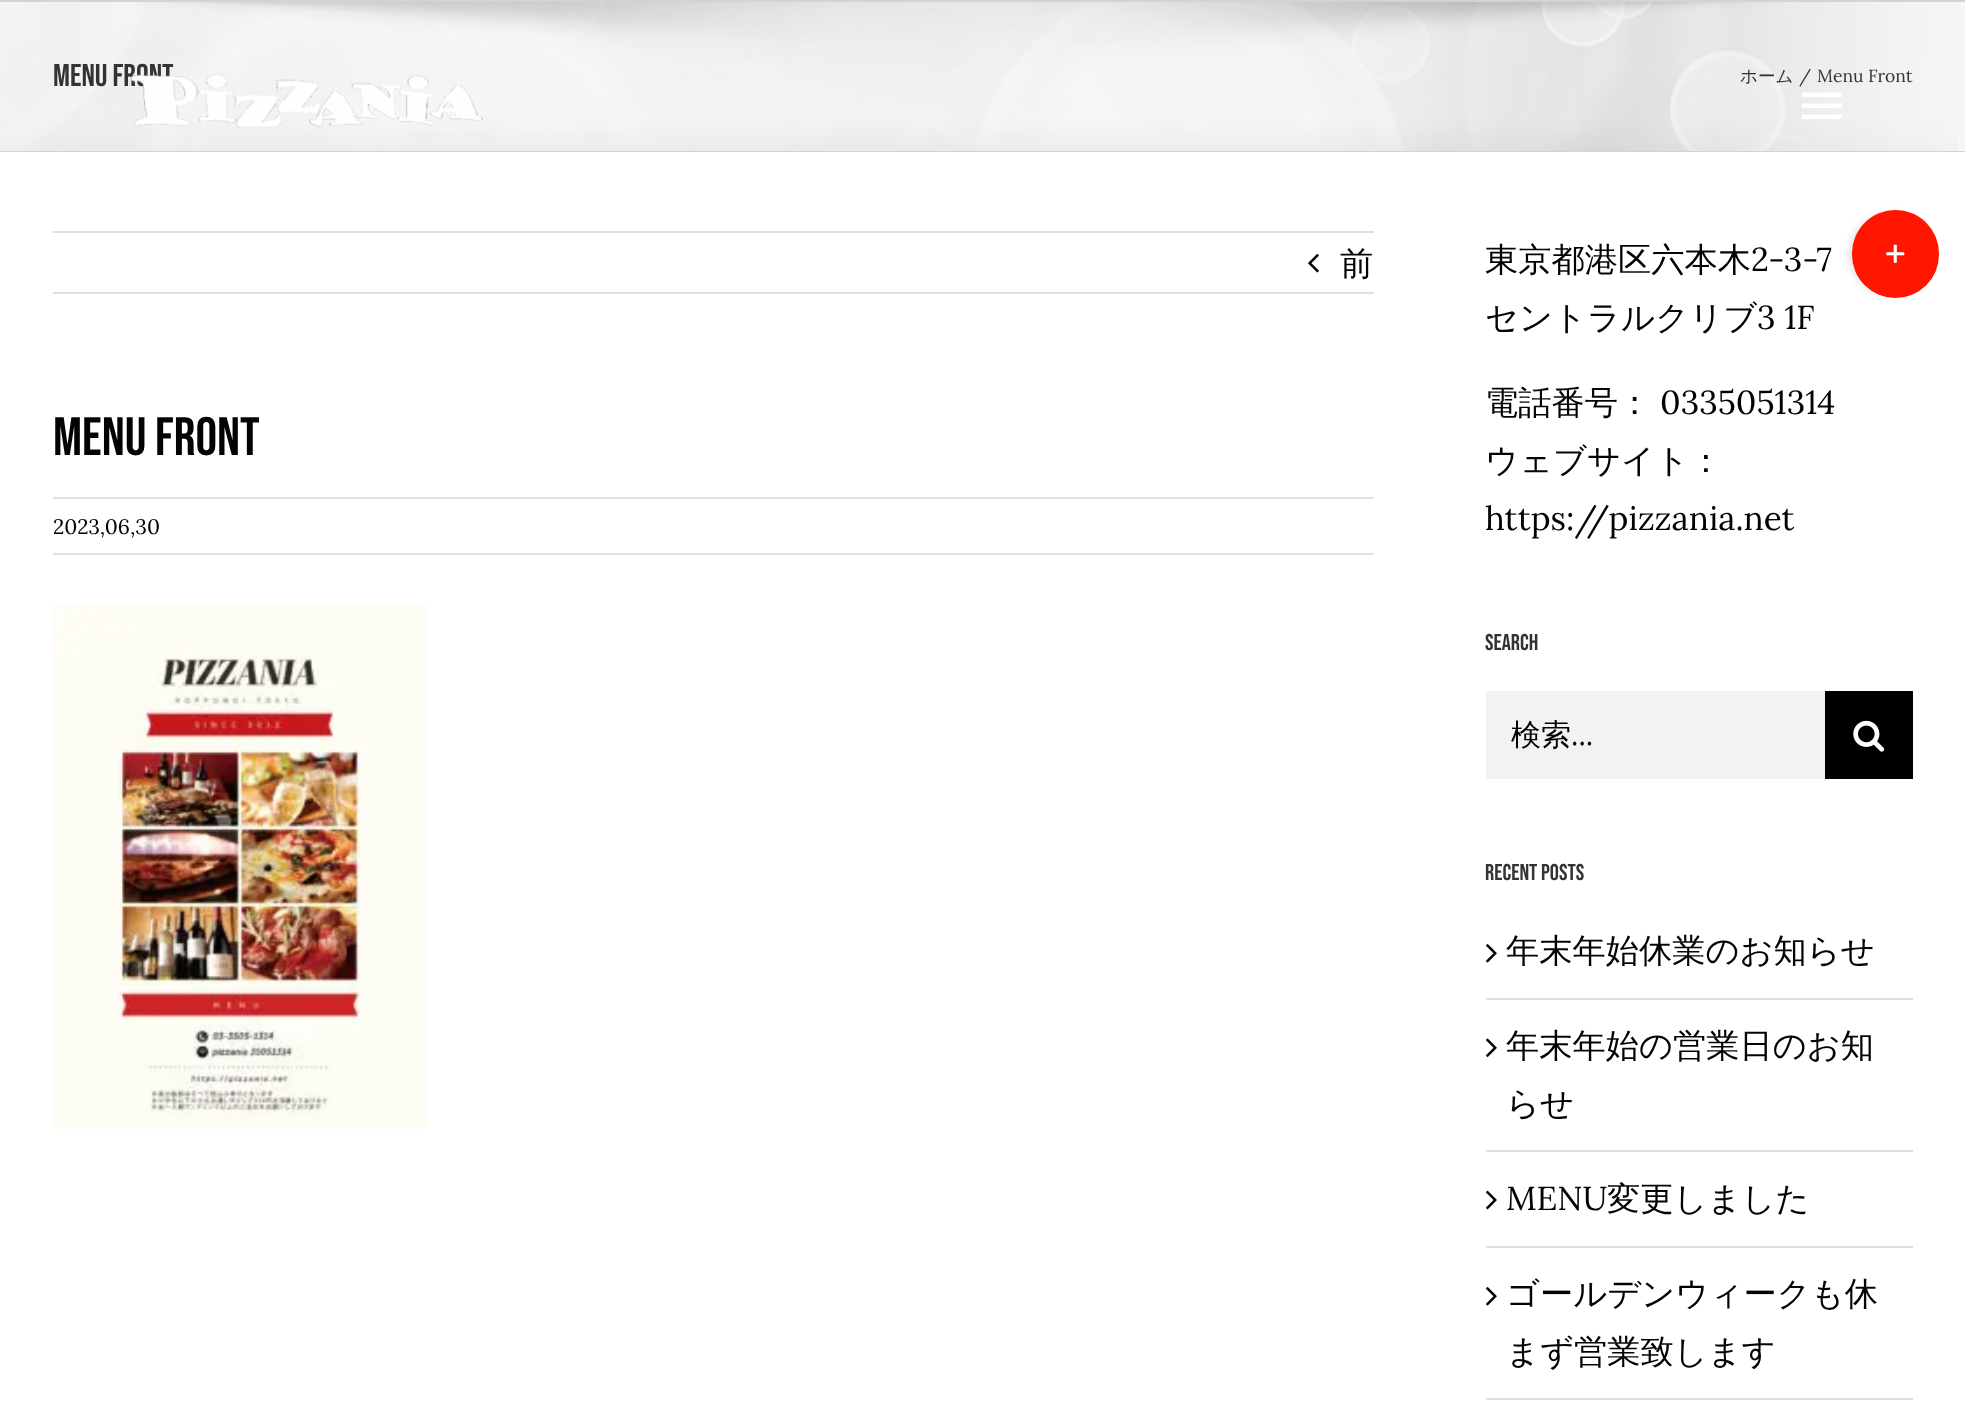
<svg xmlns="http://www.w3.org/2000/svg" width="1965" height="1404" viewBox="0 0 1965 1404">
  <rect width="100%" height="100%" fill="rgb(246,246,246)"/>
  <image x="0" y="2" width="1958" height="149" href="pic1.png"/>
  <rect x="0" y="0" width="1965" height="2" fill="rgb(210,211,212)"/>
  <rect x="0" y="151" width="1965" height="1" fill="rgb(210,211,212)"/>
  <text x="53" y="86" font-family="Bebas Neue" font-size="31.5" fill="rgb(51,51,51)">Menu Front</text>
  <text x="1740" y="82" font-family="WenQuanYi Zen Hei" font-size="17.5" font-weight="500" fill="rgb(51,51,51)">ホーム</text>
  <g font-family="Lora" font-size="17.5" fill="rgb(51,51,51)">
    <text x="1799" y="82">/</text>
    <text x="1817" y="82">Menu Front</text>
  </g>
  <image x="130" y="73" width="354" height="55" href="pic2.png"/>
  <path d="M1802 92.5H1841.5V97H1802ZM1802 108V103.5H1841.5V108ZM1802 119V114.5H1841.5V119Z" fill="rgb(255,255,255)"/>
  <rect x="0" y="152" width="1965" height="1252" fill="rgb(255,255,255)"/>
  <rect x="53" y="231" width="1321" height="2" fill="rgb(224,222,222)"/>
  <rect x="53" y="292" width="1321" height="2" fill="rgb(224,222,222)"/>
  <image x="1308" y="254" width="11" height="19" href="pic3.png"/>
  <text x="1340" y="275" font-family="WenQuanYi Zen Hei" font-size="33.25" font-weight="500" fill="rgb(3,3,3)">前</text>
  <text x="53" y="455" font-family="Bebas Neue" font-size="54" fill="rgb(3,3,3)">Menu Front</text>
  <rect x="53" y="497" width="1321" height="2" fill="rgb(224,222,222)"/>
  <rect x="53" y="553" width="1321" height="2" fill="rgb(224,222,222)"/>
  <text x="53" y="534" font-family="Lora" font-size="21" fill="rgb(3,3,3)">2023,06,30</text>
  <image x="52" y="604" width="375" height="525" href="pic4.png"/>
  <text x="1485" y="271" font-family="WenQuanYi Zen Hei" font-size="33.25" font-weight="500" fill="rgb(3,3,3)">東京都港区六本木</text>
  <text x="1751" y="271" font-family="Lora" font-size="33.25" fill="rgb(3,3,3)">2-3-7</text>
  <text x="1485" y="329" font-family="WenQuanYi Zen Hei" font-size="33.25" font-weight="500" fill="rgb(3,3,3)">セントラルクリブ</text>
  <text x="1757" y="329" font-family="Lora" font-size="33.25" fill="rgb(3,3,3)">3 1F</text>
  <text x="1485" y="414" font-family="WenQuanYi Zen Hei" font-size="33.25" font-weight="500" fill="rgb(3,3,3)">電話番号：</text>
  <text x="1660" y="414" font-family="Lora" font-size="33.25" fill="rgb(3,3,3)">0335051314</text>
  <text x="1485" y="472" font-family="WenQuanYi Zen Hei" font-size="33.25" font-weight="500" fill="rgb(3,3,3)">ウェブサイト：</text>
  <text x="1485" y="530" font-family="Lora" font-size="33.25" fill="rgb(3,3,3)">https://pizzania.net</text>
  <text x="1485" y="650" font-family="Bebas Neue" font-size="22.75" fill="rgb(51,51,51)">Search</text>
  <rect x="1486" y="691" width="339" height="88" fill="rgb(242,242,242)"/>
  <text x="1511" y="745" font-family="WenQuanYi Zen Hei" font-size="30" font-weight="500" fill="rgb(3,3,3)">検索</text>
  <text x="1571" y="745" font-family="Lora" font-size="30" fill="rgb(3,3,3)">...</text>
  <rect x="1825" y="691" width="88" height="88" fill="rgb(0,0,0)"/>
  <image x="1853" y="720" width="32" height="32" href="pic5.png"/>
  <text x="1485" y="880" font-family="Bebas Neue" font-size="22.75" fill="rgb(51,51,51)">Recent Posts</text>
  <rect x="1486" y="998" width="427" height="2" fill="rgb(224,222,222)"/>
  <image x="1486" y="944" width="11" height="19" href="pic6.png"/>
  <text x="1506" y="962" font-family="WenQuanYi Zen Hei" font-size="33.25" font-weight="500" fill="rgb(3,3,3)">年末年始休業のお知らせ</text>
  <rect x="1486" y="1150" width="427" height="2" fill="rgb(224,222,222)"/>
  <image x="1486" y="1038" width="11" height="19" href="pic7.png"/>
  <g font-family="WenQuanYi Zen Hei" font-size="33.25" font-weight="500" fill="rgb(3,3,3)">
    <text>
      <tspan x="1506" y="1057">年末年始の営業日のお知</tspan>
      <tspan x="1506" y="1115">らせ</tspan>
    </text>
  </g>
  <rect x="1486" y="1246" width="427" height="2" fill="rgb(224,222,222)"/>
  <image x="1486" y="1190" width="11" height="20" href="pic8.png"/>
  <text x="1506" y="1210" font-family="Lora" font-size="33.25" fill="rgb(3,3,3)">MENU</text>
  <text x="1607" y="1210" font-family="WenQuanYi Zen Hei" font-size="33.25" font-weight="500" fill="rgb(3,3,3)">変更しました</text>
  <rect x="1486" y="1398" width="427" height="2" fill="rgb(224,222,222)"/>
  <image x="1486" y="1287" width="11" height="19" href="pic6.png"/>
  <g font-family="WenQuanYi Zen Hei" font-size="33.25" font-weight="500" fill="rgb(3,3,3)">
    <text>
      <tspan x="1506" y="1305">ゴールデンウィークも休</tspan>
      <tspan x="1506" y="1363">まず営業致します</tspan>
    </text>
  </g>
  <rect x="1850" y="214" width="80" height="80" rx="40" fill="rgba(0,0,0,0.14)" filter="blur(4.5px)"/>
  <rect x="1852" y="210" width="87" height="88" rx="43.5" fill="rgb(255,21,0)"/>
  <image x="1886" y="244" width="19" height="19" href="pic9.png"/>
</svg>
